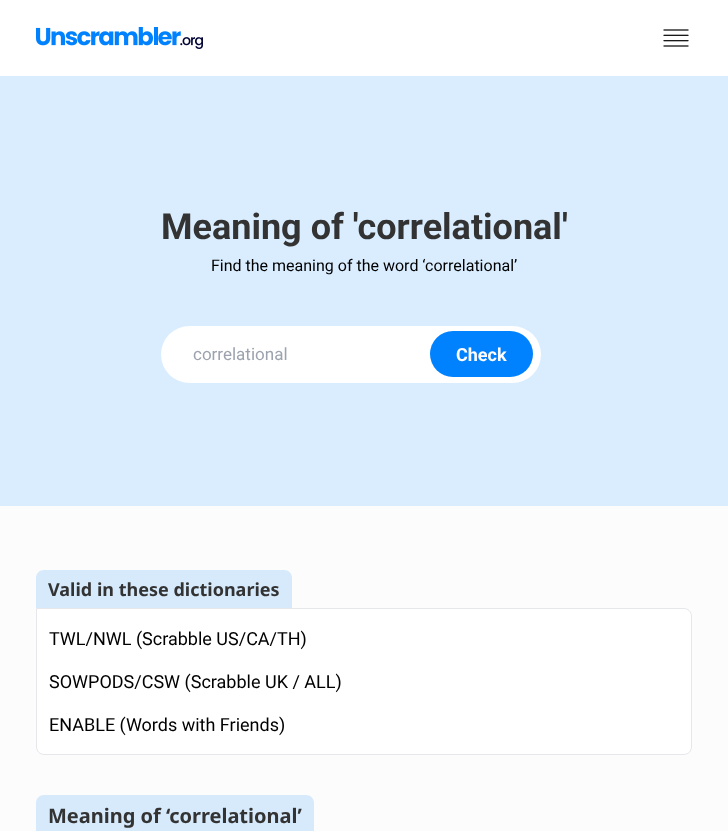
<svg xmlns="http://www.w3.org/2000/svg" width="728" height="831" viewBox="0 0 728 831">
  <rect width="100%" height="100%" fill="rgb(255,255,255)"/>
  <image x="36" y="27" width="167" height="22" href="pic1.png"/>
  <image x="663" y="29" width="26" height="18" href="pic2.png"/>
  <rect x="0" y="76" width="728" height="430" fill="rgb(217,237,255)"/>
  <text x="161" y="239" font-family="Roboto" font-size="36" font-weight="bold" fill="rgb(51,51,51)">Meaning of 'correlational'</text>
  <text x="211" y="271" font-family="Roboto" font-size="16" fill="rgb(0,0,0)">Find the meaning of the word ‘correlational’</text>
  <rect x="161" y="326" width="380" height="57" rx="28.5" fill="rgb(255,255,255)"/>
  <text x="193" y="360" font-family="Roboto" font-size="17" fill="rgb(156,163,175)">correlational</text>
  <rect x="430" y="331" width="103" height="46" rx="23" fill="rgb(0,129,254)"/>
  <text x="456" y="361" font-family="Roboto" font-size="18" font-weight="bold" fill="rgb(255,255,255)">Check</text>
  <rect x="0" y="506" width="728" height="325" fill="rgb(252,252,252)"/>
  <path d="M44 570H284C288.5 570 292 573.5 292 578V608H36V578C36 573.5 39.5 570 44 570Z" fill="rgb(214,234,252)"/>
  <text x="48" y="596" font-family="Noto Sans" font-size="18" font-weight="bold" fill="rgb(51,51,51)">Valid in these dictionaries</text>
  <path d="M36.5 608.5H684C688 608.5 691.5 612 691.5 616V747C691.5 751 688 754.5 684 754.5H44C40 754.5 36.5 751 36.5 747Z" fill="rgb(255,255,255)" stroke="rgb(229,231,235)"/>
  <g font-family="Roboto" font-size="18" fill="rgb(0,0,0)">
    <text x="49" y="645">TWL/NWL (Scrabble US/CA/TH)</text>
    <text x="49" y="688">SOWPODS/CSW (Scrabble UK / ALL)</text>
    <text x="49" y="731">ENABLE (Words with Friends)</text>
  </g>
  <path d="M44 795H306C310.5 795 314 798.5 314 803V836H36V803C36 798.5 39.5 795 44 795Z" fill="rgb(214,234,252)"/>
  <text x="48" y="823" font-family="Noto Sans" font-size="20" font-weight="bold" fill="rgb(51,51,51)">Meaning of ‘correlational’</text>
</svg>
